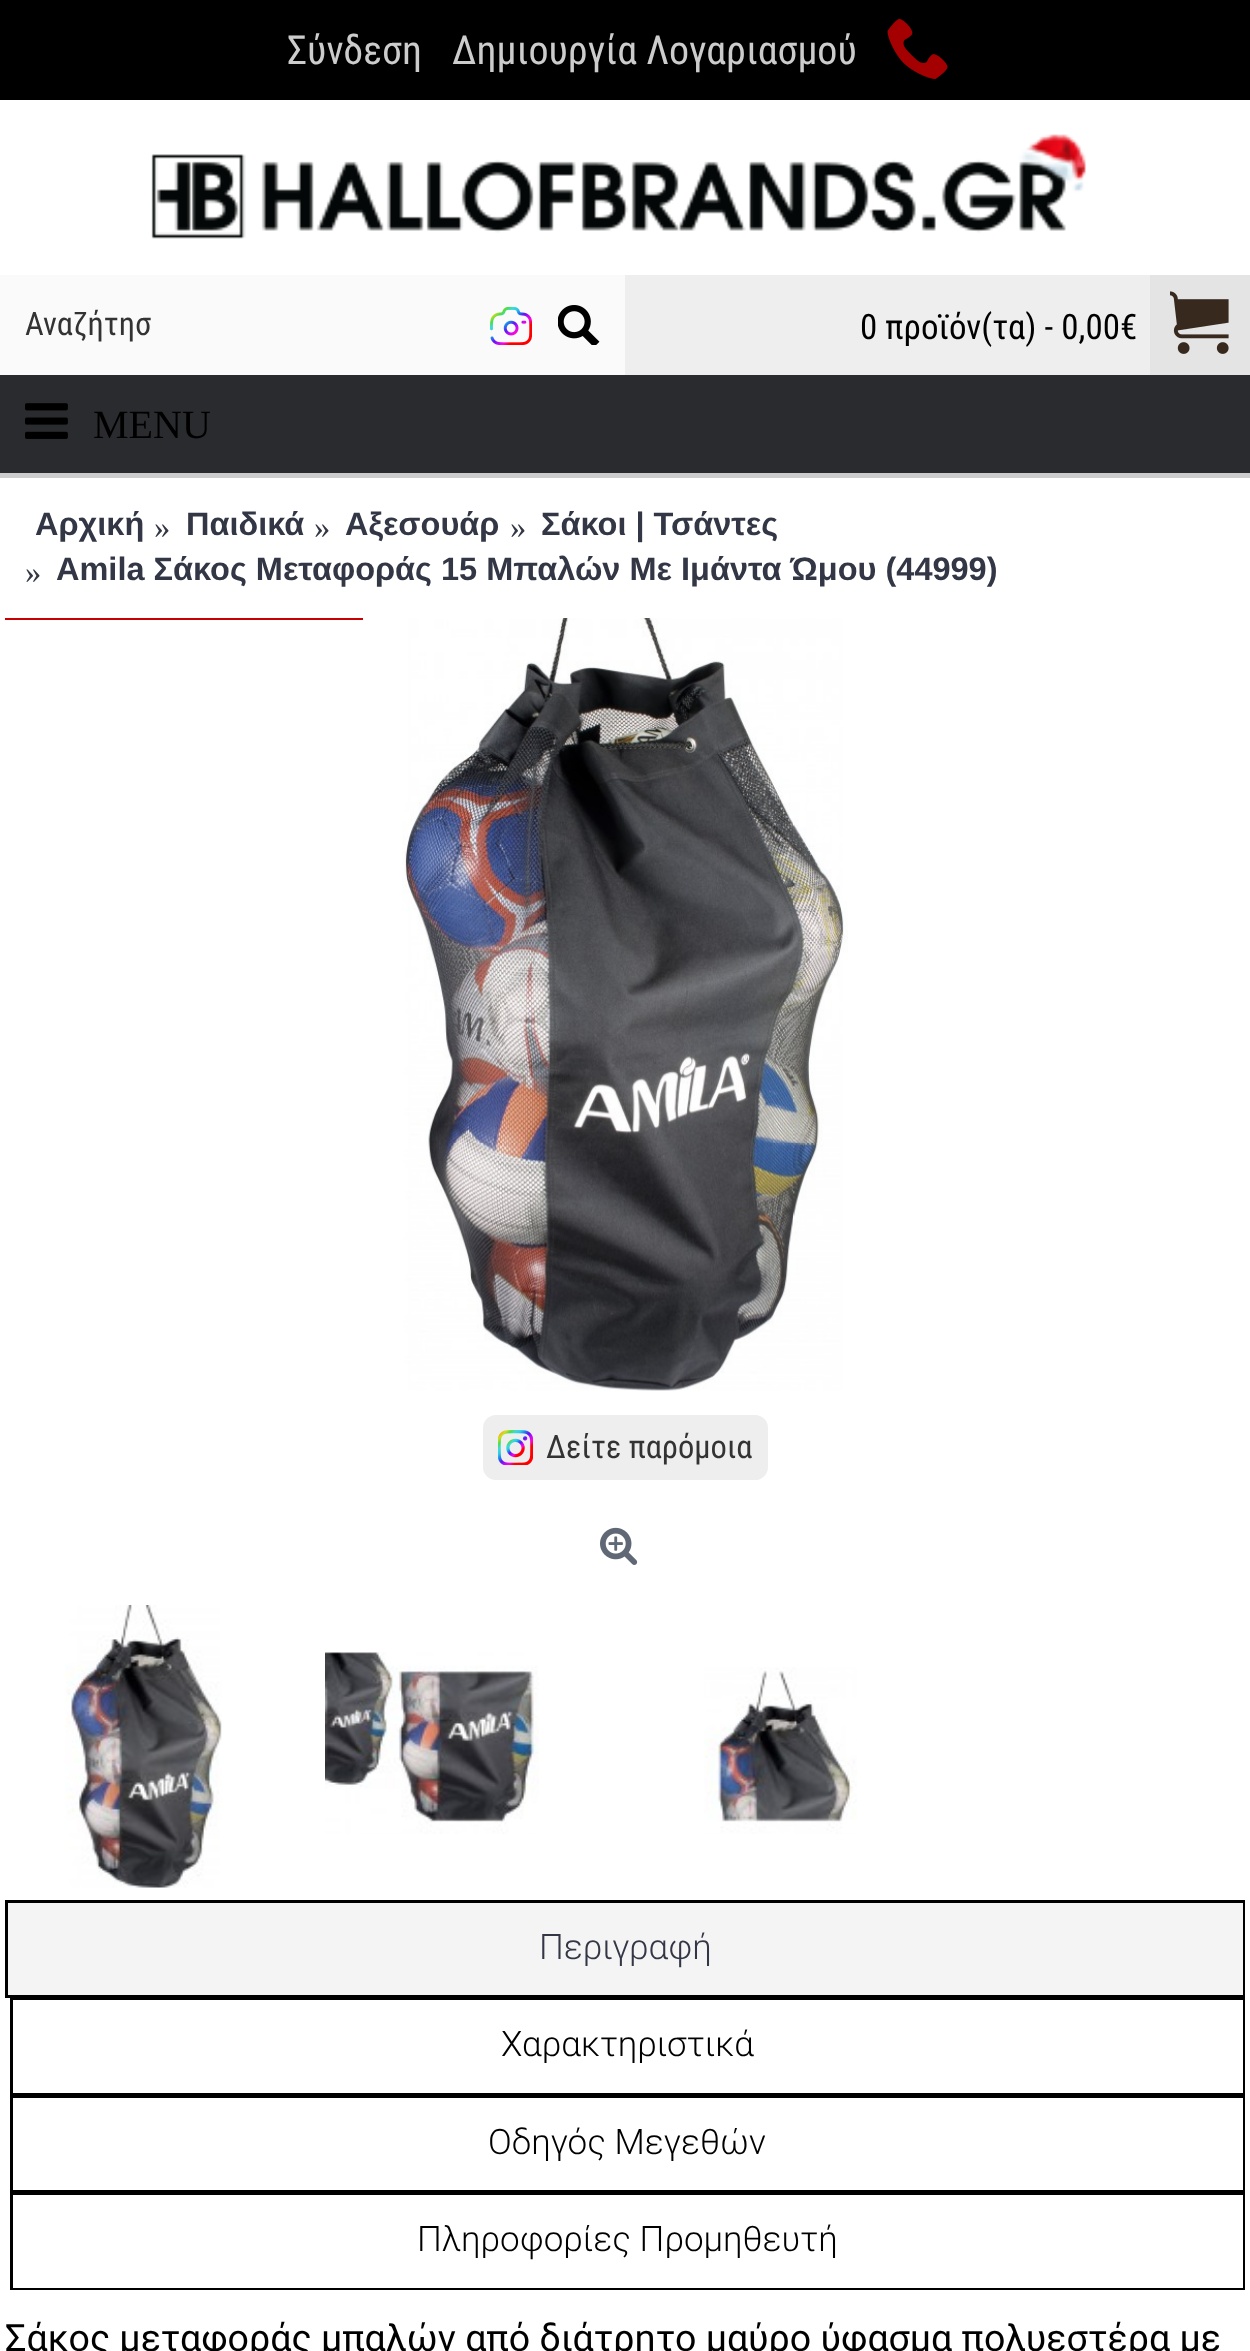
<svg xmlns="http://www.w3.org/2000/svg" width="1250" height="2351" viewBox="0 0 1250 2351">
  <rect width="100%" height="100%" fill="rgb(255,255,255)"/>
  <rect x="0" y="0" width="1250" height="100" fill="rgb(0,0,0)"/>
  <g font-family="Roboto Condensed" font-size="40" fill="rgb(204,204,204)">
    <text x="287" y="64">Σύνδεση</text>
    <text x="452" y="64">Δημιουργία Λογαριασμού</text>
  </g>
  <image x="887" y="19" width="61" height="60" href="pic1.png"/>
  <image x="151" y="134" width="935" height="105" href="pic2.png"/>
  <rect x="0" y="275" width="625" height="100" fill="rgb(250,250,250)"/>
  <text x="25" y="335" font-family="Roboto Condensed" font-size="32.5" fill="rgb(51,51,51)">Αναζήτησ</text>
  <image x="490" y="306" width="42" height="39" href="pic3.png"/>
  <image x="558" y="305" width="42" height="40" href="pic4.png"/>
  <rect x="625" y="275" width="525" height="100" fill="rgb(238,238,238)"/>
  <text x="860" y="339" font-family="Roboto Condensed" font-size="35" fill="rgb(0,0,0)">0 προϊόν(τα) - 0,00€</text>
  <rect x="1150" y="275" width="100" height="100" fill="rgb(228,228,228)"/>
  <image x="1170" y="291" width="59" height="63" href="pic5.png"/>
  <rect x="0" y="473" width="1250" height="5" fill="rgb(204,204,204)"/>
  <rect x="0" y="375" width="1250" height="98" fill="rgb(42,43,46)"/>
  <image x="25" y="403" width="43" height="36" href="pic6.png"/>
  <text x="93" y="438" font-family="Liberation Serif" font-size="40" fill="rgb(0,0,0)">MENU</text>
  <text x="35" y="535" font-family="Liberation Sans" font-size="32.5" font-weight="bold" fill="rgb(51,55,69)">Αρχική</text>
  <text x="154" y="538" font-family="Liberation Serif" font-size="32.5" fill="rgb(51,55,69)">»</text>
  <text x="186" y="535" font-family="Liberation Sans" font-size="32.5" font-weight="bold" fill="rgb(51,55,69)">Παιδικά</text>
  <text x="314" y="538" font-family="Liberation Serif" font-size="32.5" fill="rgb(51,55,69)">»</text>
  <text x="345" y="535" font-family="Liberation Sans" font-size="32.5" font-weight="bold" fill="rgb(51,55,69)">Αξεσουάρ</text>
  <text x="510" y="538" font-family="Liberation Serif" font-size="32.5" fill="rgb(51,55,69)">»</text>
  <text x="541" y="535" font-family="Liberation Sans" font-size="32.5" font-weight="bold" fill="rgb(51,55,69)">Σάκοι | Τσάντες</text>
  <text x="25" y="583" font-family="Liberation Serif" font-size="32.5" fill="rgb(51,55,69)">»</text>
  <text x="56" y="580" font-family="Liberation Sans" font-size="32.5" font-weight="bold" fill="rgb(51,55,69)">Amila Σάκος Μεταφοράς 15 Μπαλών Με Ιμάντα Ώμου (44999)</text>
  <rect x="5" y="618" width="358" height="2" fill="rgb(199,0,0)"/>
  <image x="402" y="618" width="446" height="773" href="pic7.png"/>
  <rect x="483" y="1415" width="285" height="65" rx="13" fill="rgb(238,238,238)"/>
  <image x="498" y="1430" width="35" height="35" href="pic8.png"/>
  <text x="546" y="1458" font-family="Roboto Condensed" font-size="32.5" fill="rgb(51,51,51)">Δείτε παρόμοια</text>
  <image x="600" y="1527" width="38" height="38" href="pic9.png"/>
  <image x="65" y="1605" width="157" height="283" href="pic10.png"/>
  <image x="325" y="1652" width="214" height="182" href="pic11.png"/>
  <image x="704" y="1667" width="153" height="167" href="pic12.png"/>
  <rect x="6.5" y="1901.5" width="1237" height="95" fill="none" stroke="rgb(0,0,0)" stroke-width="3"/>
  <rect x="8" y="1903" width="1235" height="92" fill="rgb(244,244,244)"/>
  <text x="539" y="1959" font-family="Roboto" font-size="35" font-weight="300" fill="rgb(51,55,69)">Περιγραφή</text>
  <rect x="11.5" y="1999.5" width="1232" height="94" fill="none" stroke="rgb(0,0,0)" stroke-width="3"/>
  <rect x="13" y="2000" width="1230" height="93" fill="rgb(255,255,255)"/>
  <text x="501" y="2056" font-family="Roboto" font-size="35" font-weight="300" fill="rgb(0,0,0)">Χαρακτηριστικά</text>
  <rect x="11.5" y="2096.5" width="1232" height="95" fill="none" stroke="rgb(0,0,0)" stroke-width="3"/>
  <rect x="1242" y="2098" width="1" height="92" fill="rgb(255,255,255)"/>
  <text x="488" y="2154" font-family="Roboto" font-size="35" font-weight="300" fill="rgb(0,0,0)">Οδηγός Μεγεθών</text>
  <rect x="11.5" y="2194.5" width="1232" height="94" fill="none" stroke="rgb(0,0,0)" stroke-width="3"/>
  <rect x="13" y="2195" width="1230" height="93" fill="rgb(255,255,255)"/>
  <text x="417" y="2251" font-family="Roboto" font-size="35" font-weight="300" fill="rgb(0,0,0)">Πληροφορίες Προμηθευτή</text>
  <text x="5" y="2351" font-family="Roboto" font-size="37.5" fill="rgb(0,0,0)">Σάκος μεταφοράς μπαλών από διάτρητο μαύρο ύφασμα πολυεστέρα με</text>
</svg>
